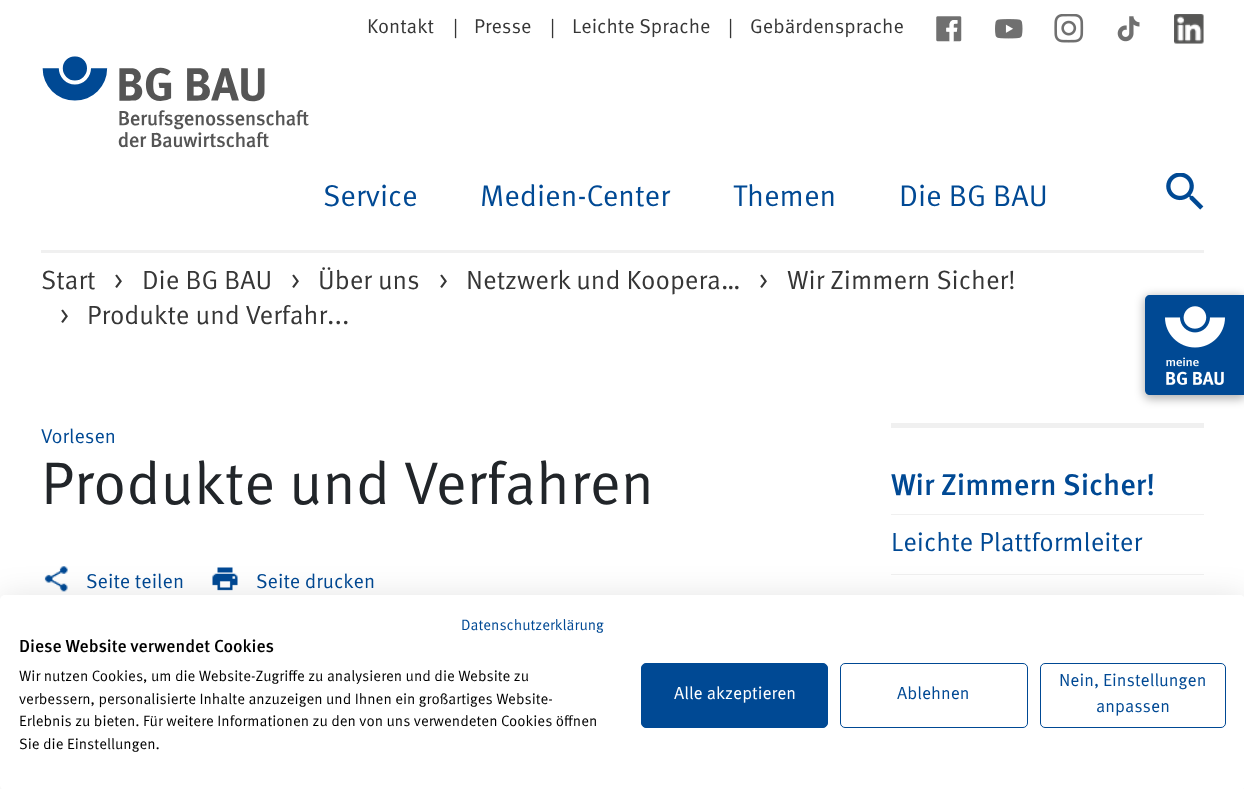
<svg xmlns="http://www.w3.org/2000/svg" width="1244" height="789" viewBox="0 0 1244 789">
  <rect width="100%" height="100%" fill="rgb(255,255,255)"/>
  <g font-family="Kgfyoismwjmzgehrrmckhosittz" font-size="20" fill="rgb(54,54,54)">
    <text x="367" y="33">Kontakt</text>
    <text x="453" y="34">|</text>
    <text x="474" y="33">Presse</text>
    <text x="550" y="34">|</text>
    <text x="572" y="33">Leichte Sprache</text>
    <text x="728" y="34">|</text>
    <text x="750" y="33">Gebärdensprache</text>
  </g>
  <image x="936" y="16" width="26" height="26" href="pic1.png"/>
  <image x="995" y="19" width="28" height="20" href="pic2.png"/>
  <image x="1054" y="14" width="30" height="29" href="pic3.png"/>
  <image x="1117" y="16" width="23" height="26" href="pic4.png"/>
  <image x="1174" y="14" width="30" height="30" href="pic5.png"/>
  <image x="42" y="56" width="267" height="92" href="pic6.png"/>
  <g font-family="Kgfyoismwjmzgehrrmckhosittz" font-size="30" fill="rgb(0,73,148)">
    <text x="323" y="206">Service</text>
    <text x="480" y="206">Medien-Center</text>
    <text x="733" y="206">Themen</text>
    <text x="899" y="206">Die BG BAU</text>
  </g>
  <image x="1166" y="173" width="38" height="37" href="pic7.png"/>
  <rect x="41" y="250" width="1163" height="3" fill="rgb(240,240,240)"/>
  <g font-family="Kgfyoismwjmzgehrrmckhosittz" font-size="26.25" fill="rgb(54,54,54)">
    <text x="41" y="289">Start</text>
    <text x="114" y="289">&gt;</text>
    <text x="142" y="289">Die BG BAU</text>
    <text x="291" y="289">&gt;</text>
    <text x="318" y="289">Über uns</text>
    <text x="439" y="289">&gt;</text>
    <text x="466" y="289">Netzwerk und Koopera…</text>
    <text x="759" y="289">&gt;</text>
    <text x="787" y="289">Wir Zimmern Sicher!</text>
    <text x="60" y="324">&gt;</text>
    <text x="87" y="324">Produkte und Verfahr...</text>
  </g>
  <rect x="1144" y="296" width="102" height="103" rx="6" fill="rgba(0,0,0,0.3)" filter="blur(5px)"/>
  <path d="M1150 295H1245V395H1150C1147 395 1145 393 1145 390V300C1145 297 1147 295 1150 295Z" fill="rgb(0,73,148)"/>
  <image x="1165" y="306" width="60" height="79" href="pic8.png"/>
  <text x="41" y="443" font-family="Kgfyoismwjmzgehrrmckhosittz" font-size="20" fill="rgb(0,73,148)">Vorlesen</text>
  <text x="41" y="504" font-family="Kgfyoismwjmzgehrrmckhosittz" font-size="60" fill="rgb(33,37,41)">Produkte und Verfahren</text>
  <image x="44" y="566" width="24" height="26" href="pic9.png"/>
  <text x="86" y="588" font-family="Kgfyoismwjmzgehrrmckhosittz" font-size="20" fill="rgb(0,73,148)">Seite teilen</text>
  <image x="212" y="567" width="26" height="24" href="pic10.png"/>
  <text x="256" y="588" font-family="Kgfyoismwjmzgehrrmckhosittz" font-size="20" fill="rgb(0,73,148)">Seite drucken</text>
  <rect x="891" y="423" width="313" height="5" fill="rgb(240,240,240)"/>
  <text x="891" y="495" font-family="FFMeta" font-size="30" font-weight="500" fill="rgb(0,73,148)">Wir Zimmern Sicher!</text>
  <rect x="891" y="514" width="313" height="1" fill="rgb(240,240,240)"/>
  <text x="891" y="551" font-family="Kgfyoismwjmzgehrrmckhosittz" font-size="26.25" fill="rgb(0,73,148)">Leichte Plattformleiter</text>
  <rect x="891" y="574" width="313" height="1" fill="rgb(240,240,240)"/>
  <rect x="0" y="595" width="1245" height="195" rx="5" fill="rgba(0,0,0,0.1)" filter="blur(15px)"/>
  <rect x="0" y="595" width="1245" height="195" rx="5" fill="rgb(255,255,255)"/>
  <text x="461" y="630" font-family="Kgfyoismwjmzgehrrmckhosittz" font-size="15" fill="rgb(0,73,148)">Datenschutzerklärung</text>
  <text x="19" y="652" font-family="FFMeta" font-size="17.5" font-weight="500" fill="rgb(0,0,0)">Diese Website verwendet Cookies</text>
  <g font-family="Kgfyoismwjmzgehrrmckhosittz" font-size="15" fill="rgb(0,0,0)">
    <text>
      <tspan x="19" y="681">Wir nutzen Cookies, um die Website-Zugriffe zu analysieren und die Website zu</tspan>
      <tspan x="19" y="704">verbessern, personalisierte Inhalte anzuzeigen und Ihnen ein großartiges Website-</tspan>
      <tspan x="19" y="726">Erlebnis zu bieten. Für weitere Informationen zu den von uns verwendeten Cookies öffnen</tspan>
      <tspan x="19" y="749">Sie die Einstellungen.</tspan>
    </text>
  </g>
  <rect x="641.5" y="663.5" width="186" height="64" rx="4.5" fill="rgb(0,73,148)" stroke="rgb(0,73,148)"/>
  <text x="674" y="699" font-family="Kgfyoismwjmzgehrrmckhosittz" font-size="17.5" fill="rgb(255,255,255)">Alle akzeptieren</text>
  <rect x="840.5" y="663.5" width="187" height="64" rx="4.5" fill="none" stroke="rgb(0,73,148)"/>
  <text x="897" y="699" font-family="Kgfyoismwjmzgehrrmckhosittz" font-size="17.5" fill="rgb(0,73,148)">Ablehnen</text>
  <rect x="1040.5" y="663.5" width="185" height="64" rx="4.5" fill="none" stroke="rgb(0,73,148)"/>
  <g font-family="Kgfyoismwjmzgehrrmckhosittz" font-size="17.5" fill="rgb(0,73,148)">
    <text x="1059" y="686">Nein, Einstellungen</text>
    <text x="1096" y="712">anpassen</text>
  </g>
</svg>
